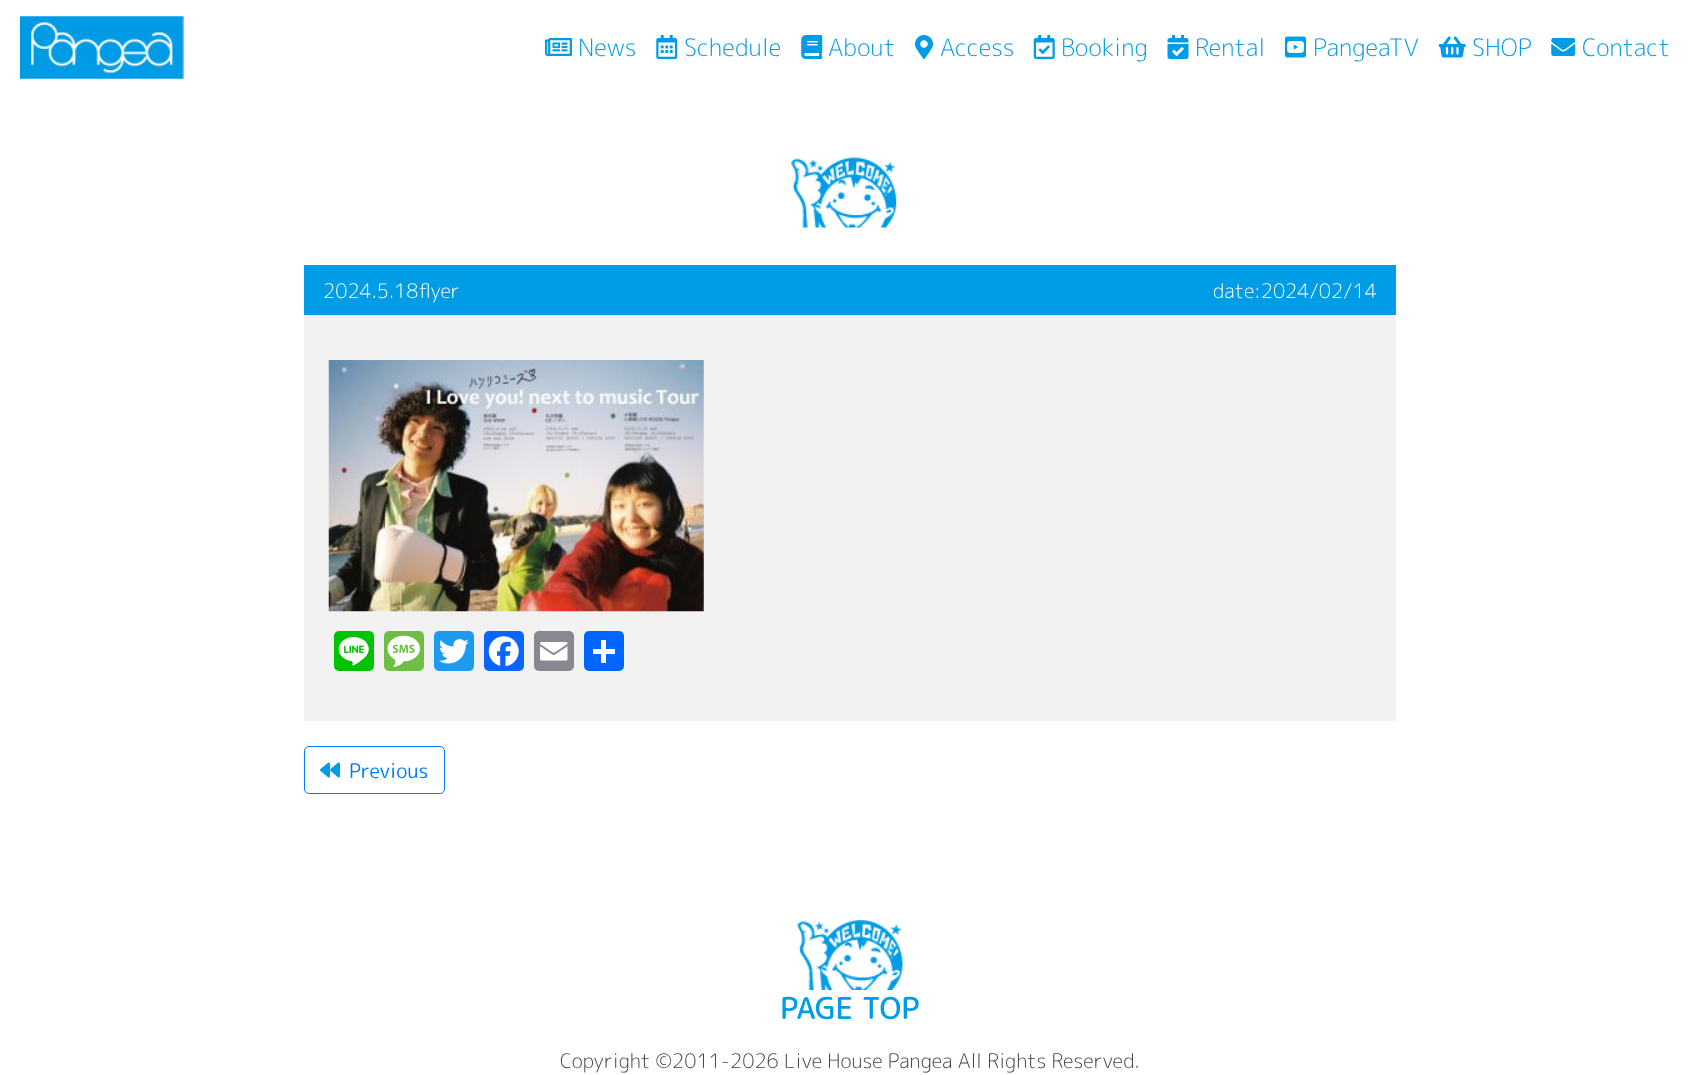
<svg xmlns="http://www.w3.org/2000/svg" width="1699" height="1075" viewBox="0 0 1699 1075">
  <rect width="100%" height="100%" fill="rgb(255,255,255)"/>
  <image x="20" y="16" width="164" height="63" href="pic1.png"/>
  <image x="545" y="38" width="27" height="18" href="pic2.png"/>
  <text x="578" y="56" font-family="'Rounded Mplus 1c'" font-size="24" font-weight="300" fill="rgb(0,156,229)">News</text>
  <image x="656" y="35" width="22" height="24" href="pic3.png"/>
  <text x="684" y="56" font-family="'Rounded Mplus 1c'" font-size="24" font-weight="300" fill="rgb(0,156,229)">Schedule</text>
  <image x="801" y="35" width="22" height="24" href="pic4.png"/>
  <text x="828" y="56" font-family="'Rounded Mplus 1c'" font-size="24" font-weight="300" fill="rgb(0,156,229)">About</text>
  <image x="915" y="35" width="18" height="24" href="pic5.png"/>
  <text x="940" y="56" font-family="'Rounded Mplus 1c'" font-size="24" font-weight="300" fill="rgb(0,156,229)">Access</text>
  <image x="1033" y="35" width="22" height="24" href="pic6.png"/>
  <text x="1061" y="56" font-family="'Rounded Mplus 1c'" font-size="24" font-weight="300" fill="rgb(0,156,229)">Booking</text>
  <image x="1167" y="35" width="22" height="24" href="pic7.png"/>
  <text x="1195" y="56" font-family="'Rounded Mplus 1c'" font-size="24" font-weight="300" fill="rgb(0,156,229)">Rental</text>
  <image x="1285" y="36" width="21" height="22" href="pic8.png"/>
  <text x="1313" y="56" font-family="'Rounded Mplus 1c'" font-size="24" font-weight="300" fill="rgb(0,156,229)">PangeaTV</text>
  <image x="1438" y="36" width="28" height="22" href="pic9.png"/>
  <text x="1472" y="56" font-family="'Rounded Mplus 1c'" font-size="24" font-weight="300" fill="rgb(0,156,229)">SHOP</text>
  <image x="1551" y="38" width="25" height="18" href="pic10.png"/>
  <text x="1582" y="56" font-family="'Rounded Mplus 1c'" font-size="24" font-weight="300" fill="rgb(0,156,229)">Contact</text>
  <image x="791" y="157" width="106" height="71" href="pic11.png"/>
  <rect x="304" y="265" width="1092" height="50" fill="rgb(0,156,229)"/>
  <g font-family="'Rounded Mplus 1c'" font-size="20" font-weight="300" fill="rgb(255,255,255)">
    <text x="323" y="298">2024.5.18flyer</text>
    <text x="1213" y="298">date:2024/02/14</text>
  </g>
  <rect x="304" y="315" width="1092" height="406" fill="rgb(242,242,242)"/>
  <image x="328" y="360" width="376" height="252" href="pic12.png"/>
  <rect x="334" y="631" width="40" height="40" rx="5" fill="rgb(0,195,0)"/>
  <image x="338" y="637" width="31" height="29" href="pic13.png"/>
  <rect x="384" y="631" width="40" height="40" rx="5" fill="rgb(108,190,69)"/>
  <image x="387" y="635" width="33" height="32" href="pic14.png"/>
  <rect x="434" y="631" width="40" height="40" rx="5" fill="rgb(29,155,240)"/>
  <image x="439" y="639" width="30" height="25" href="pic15.png"/>
  <rect x="484" y="631" width="40" height="40" rx="5" fill="rgb(8,102,255)"/>
  <image x="488" y="636" width="31" height="31" href="pic16.png"/>
  <rect x="534" y="631" width="40" height="40" rx="5" fill="rgb(136,137,144)"/>
  <image x="540" y="642" width="28" height="19" href="pic17.png"/>
  <rect x="584" y="631" width="40" height="40" rx="5" fill="rgb(1,102,255)"/>
  <rect x="601" y="640" width="5" height="23" fill="rgb(255,255,255)"/>
  <rect x="593" y="649" width="22" height="5" fill="rgb(255,255,255)"/>
  <rect x="304.5" y="746.5" width="140" height="47" rx="4.5" fill="none" stroke="rgb(0,123,255)"/>
  <image x="320" y="762" width="20" height="16" href="pic18.png"/>
  <text x="349" y="778" font-family="'Rounded Mplus 1c'" font-size="20" fill="rgb(0,123,255)">Previous</text>
  <image x="797" y="920" width="106" height="70" href="pic19.png"/>
  <text x="780" y="1019" font-family="'Rounded Mplus 1c'" font-size="30" font-weight="500" fill="rgb(0,156,229)">PAGE TOP</text>
  <text x="560" y="1068" font-family="'Rounded Mplus 1c'" font-size="20" font-weight="300" fill="rgb(67,67,67)">Copyright ©2011-2026 Live House Pangea All Rights Reserved.</text>
</svg>
